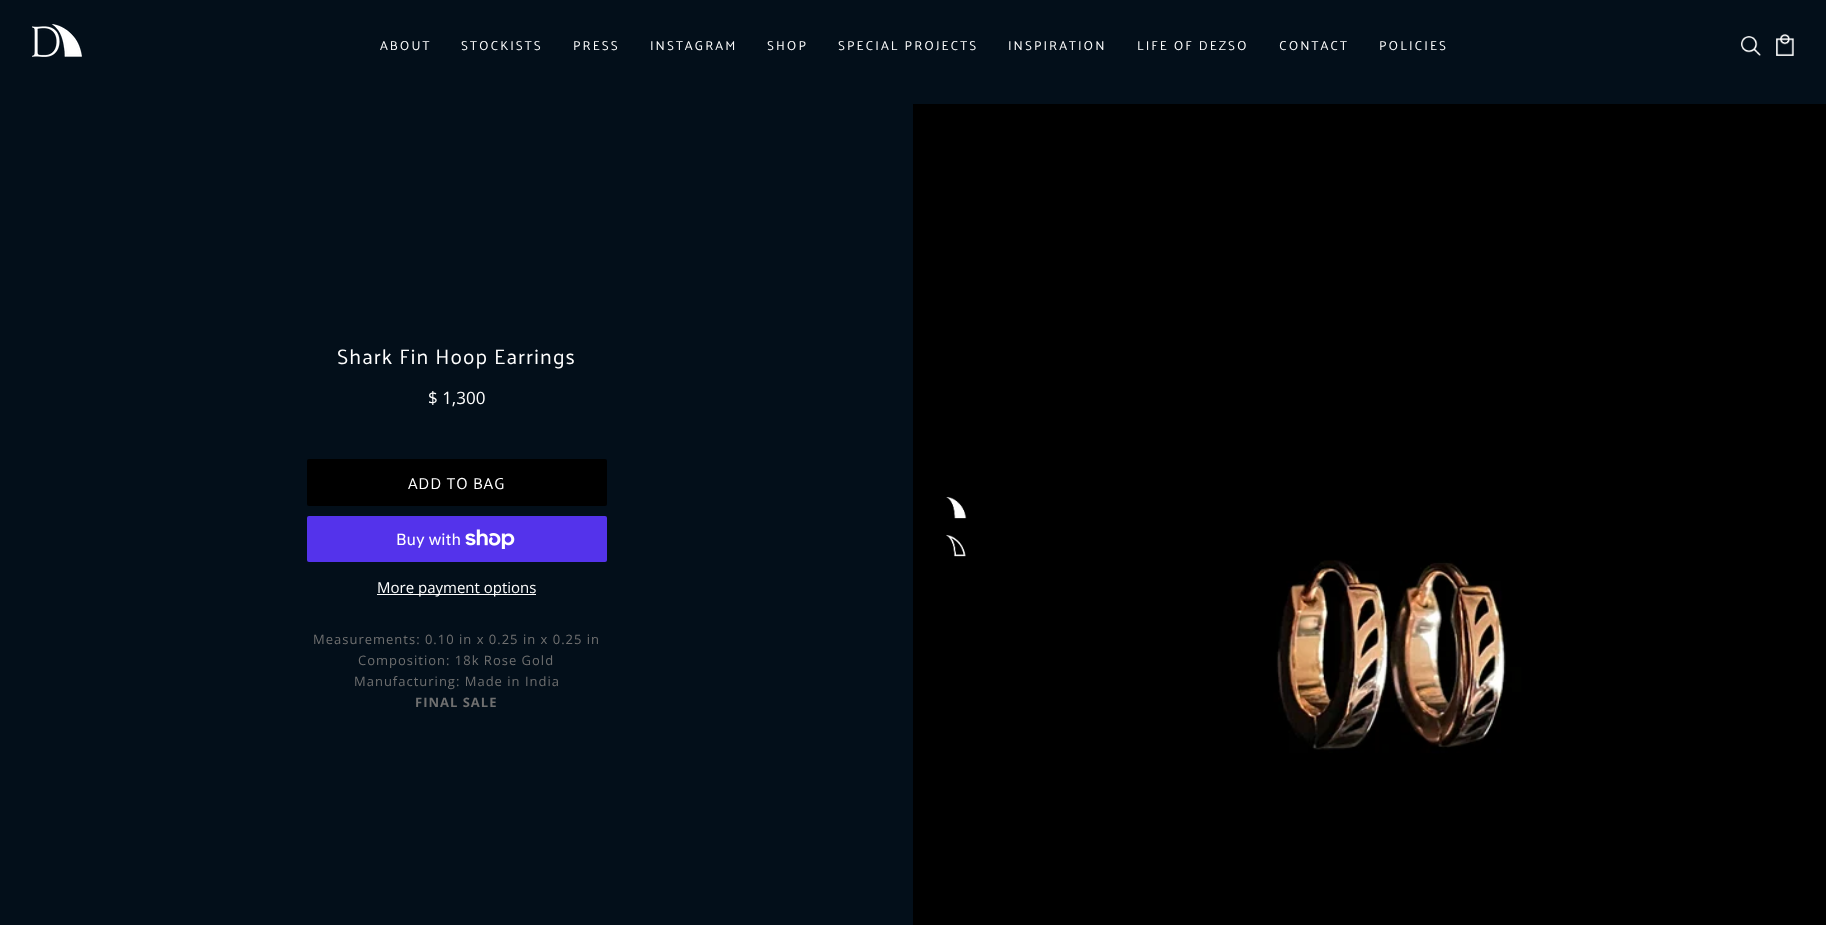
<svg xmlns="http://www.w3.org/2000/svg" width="1826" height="925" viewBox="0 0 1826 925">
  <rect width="100%" height="100%" fill="rgb(3,15,26)"/>
  <image x="32" y="24" width="50" height="33" href="pic1.png"/>
  <image x="1741" y="36" width="20" height="20" href="pic2.png"/>
  <image x="1776" y="34" width="18" height="22" href="pic3.png"/>
  <g font-family="Palanquin" font-size="13" letter-spacing="2" fill="rgb(255,255,255)">
    <text x="380" y="50">ABOUT</text>
    <text x="461" y="50">STOCKISTS</text>
    <text x="573" y="50">PRESS</text>
    <text x="650" y="50">INSTAGRAM</text>
    <text x="767" y="50">SHOP</text>
    <text x="838" y="50">SPECIAL PROJECTS</text>
    <text x="1008" y="50">INSPIRATION</text>
    <text x="1137" y="50">LIFE OF DEZSO</text>
    <text x="1279" y="50">CONTACT</text>
    <text x="1379" y="50">POLICIES</text>
  </g>
  <text x="337" y="364" font-family="Palanquin" font-size="21" letter-spacing="1.05" fill="rgb(255,255,255)">Shark Fin Hoop Earrings</text>
  <text x="428" y="404" font-family="Open Sans" font-size="17" fill="rgb(255,255,255)">$ 1,300</text>
  <rect x="307" y="459" width="300" height="47" rx="2" fill="rgb(0,0,0)"/>
  <text x="408" y="489" font-family="Palanquin" font-size="16" letter-spacing="0.75" fill="rgb(255,255,255)">ADD TO BAG</text>
  <rect x="307" y="516" width="300" height="46" rx="2" fill="rgb(84,51,235)"/>
  <text x="396" y="545" font-family="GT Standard" font-size="16" fill="rgb(255,255,255)">Buy with</text>
  <image x="465" y="529" width="50" height="20" href="pic4.png"/>
  <rect x="377" y="594" width="159" height="1" fill="rgb(255,255,255)"/>
  <text x="377" y="593" font-family="Open Sans" font-size="15" fill="rgb(255,255,255)">More payment options</text>
  <g font-family="Open Sans" font-size="13" letter-spacing="1" fill="rgb(112,112,112)">
    <text x="313" y="644">Measurements: 0.10 in x 0.25 in x 0.25 in</text>
    <text x="358" y="665">Composition: 18k Rose Gold</text>
    <text x="354" y="686">Manufacturing: Made in India</text>
  </g>
  <text x="415" y="707" font-family="Open Sans" font-size="13" font-weight="bold" letter-spacing="1" fill="rgb(112,112,112)">FINAL SALE</text>
  <image x="913" y="104" width="913" height="821" href="pic5.png"/>
  <image x="946" y="497" width="21" height="22" href="pic6.png"/>
  <image x="946" y="534" width="20" height="23" href="pic7.png"/>
</svg>
